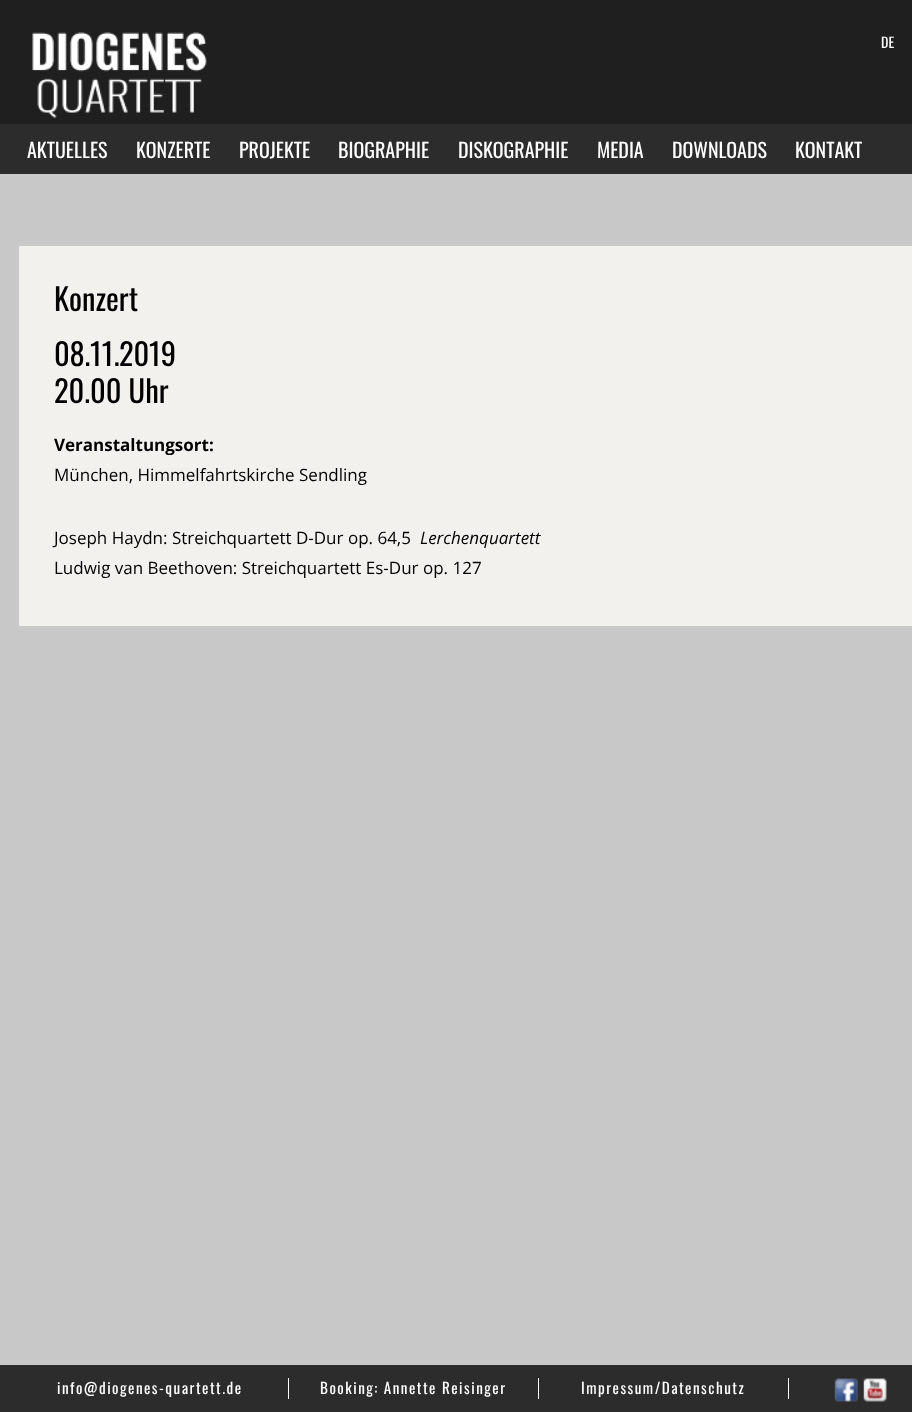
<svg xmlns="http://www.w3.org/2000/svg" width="912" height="1412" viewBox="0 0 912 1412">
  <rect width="100%" height="100%" fill="rgb(200,200,200)"/>
  <rect x="0" y="0" width="912" height="124" fill="rgb(31,31,31)"/>
  <image x="32" y="32" width="175" height="87" href="pic1.png"/>
  <text x="881" y="48" font-family="Oswald" font-size="14" fill="rgb(255,255,255)">DE</text>
  <rect x="0" y="124" width="912" height="50" fill="rgb(44,44,44)"/>
  <g font-family="Oswald" font-size="20" fill="rgb(255,255,255)">
    <text x="27" y="158">AKTUELLES</text>
    <text x="136" y="158">KONZERTE</text>
    <text x="239" y="158">PROJEKTE</text>
    <text x="338" y="158">BIOGRAPHIE</text>
    <text x="458" y="158">DISKOGRAPHIE</text>
    <text x="597" y="158">MEDIA</text>
    <text x="672" y="158">DOWNLOADS</text>
    <text x="795" y="158">KONTAKT</text>
  </g>
  <rect x="19" y="246" width="893" height="380" fill="rgb(242,241,238)"/>
  <text x="54" y="311" font-family="Oswald" font-size="30.5" fill="rgb(0,0,0)">Konzert</text>
  <text x="54" y="366" font-family="Oswald" font-size="30.5" letter-spacing="-0.25" fill="rgb(0,0,0)">08.11.2019</text>
  <text x="54" y="403" font-family="Oswald" font-size="30.5" fill="rgb(0,0,0)">20.00 Uhr</text>
  <text x="54" y="451" font-family="Open Sans" font-size="17" font-weight="bold" fill="rgb(0,0,0)">Veranstaltungsort:</text>
  <g font-family="Open Sans" font-size="17" fill="rgb(0,0,0)">
    <text x="54" y="481">München, Himmelfahrtskirche Sendling</text>
    <text x="54" y="544">Joseph Haydn: Streichquartett D-Dur op. 64,5</text>
  </g>
  <text x="420" y="544" font-family="Open Sans" font-size="17" font-style="italic" fill="rgb(0,0,0)">Lerchenquartett</text>
  <text x="54" y="574" font-family="Open Sans" font-size="17" fill="rgb(0,0,0)">Ludwig van Beethoven: Streichquartett Es-Dur op. 127</text>
  <rect x="0" y="1365" width="912" height="47" fill="rgb(44,44,44)"/>
  <rect x="288" y="1378" width="1" height="21" fill="rgb(255,255,255)"/>
  <text x="57" y="1394" font-family="Oswald" font-size="15.1" letter-spacing="1.5" fill="rgb(255,255,255)">info@diogenes-quartett.de</text>
  <rect x="538" y="1378" width="1" height="21" fill="rgb(255,255,255)"/>
  <text x="320" y="1394" font-family="Oswald" font-size="15.1" letter-spacing="1.5" fill="rgb(255,255,255)">Booking: Annette Reisinger</text>
  <rect x="788" y="1378" width="1" height="21" fill="rgb(255,255,255)"/>
  <text x="581" y="1394" font-family="Oswald" font-size="15.1" letter-spacing="1.5" fill="rgb(255,255,255)">Impressum/Datenschutz</text>
  <image x="834" y="1378" width="24" height="24" href="pic2.png"/>
  <image x="863" y="1378" width="24" height="24" href="pic3.png"/>
</svg>
